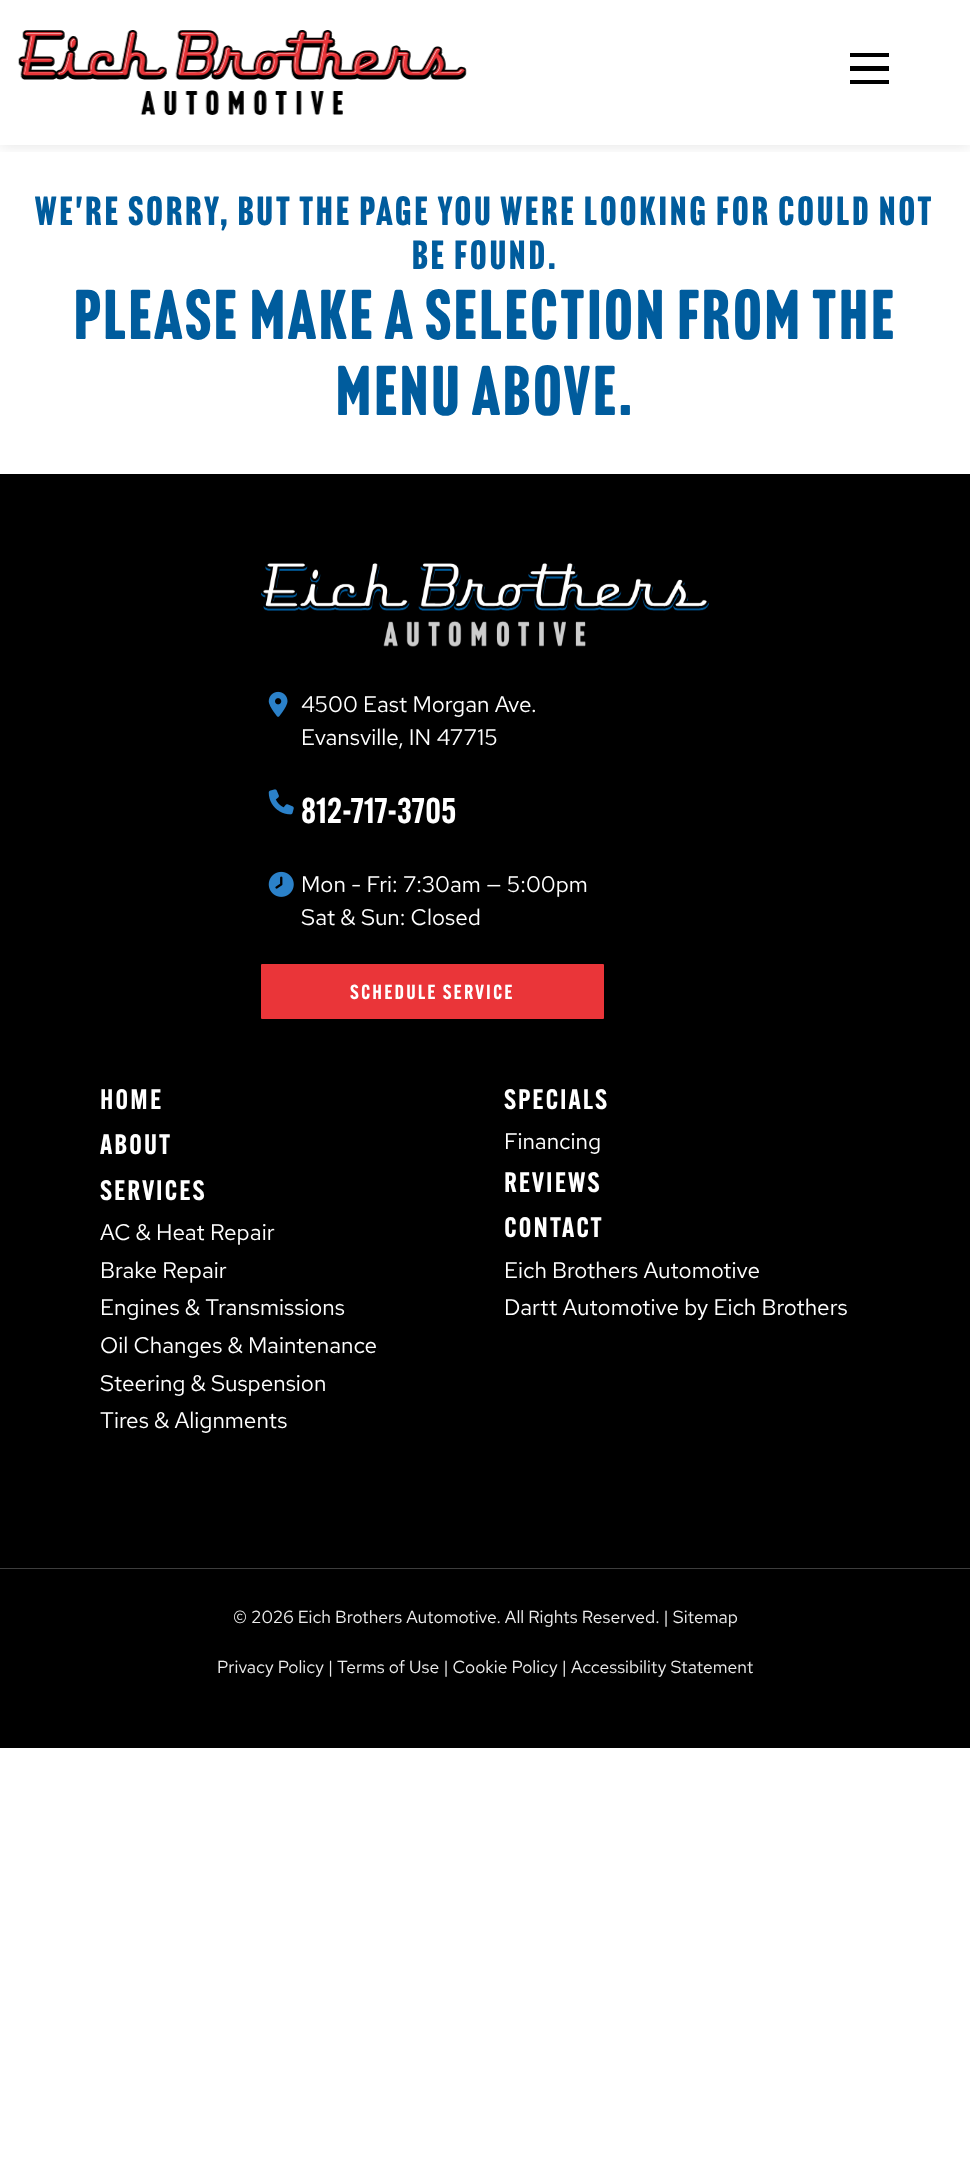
<svg xmlns="http://www.w3.org/2000/svg" width="970" height="2180" viewBox="0 0 970 2180">
  <defs>
    <clipPath id="clip1"><rect x="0" y="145" width="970" height="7"/></clipPath>
  </defs>
  <rect width="100%" height="100%" fill="rgb(255,255,255)"/>
  <g clip-path="url(#clip1)">
    <rect x="0" y="1" width="970" height="145" fill="rgba(0,0,0,0.1)" filter="blur(7.5px)"/>
  </g>
  <image x="18" y="30" width="449" height="85" href="pic1.png"/>
  <rect x="850" y="53" width="39" height="4" fill="rgb(0,0,0)"/>
  <rect x="850" y="66" width="39" height="5" fill="rgb(0,0,0)"/>
  <rect x="850" y="80" width="39" height="4" fill="rgb(0,0,0)"/>
  <g font-family="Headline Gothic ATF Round" font-size="40" letter-spacing="3.12" fill="rgb(0,92,157)">
    <text x="35" y="225">WE'RE SORRY, BUT THE PAGE YOU WERE LOOKING FOR COULD NOT</text>
    <text x="412" y="269">BE FOUND.</text>
  </g>
  <g font-family="Headline Gothic ATF Round" font-size="68.75" letter-spacing="3.12" fill="rgb(0,92,157)">
    <text x="74" y="339">PLEASE MAKE A SELECTION FROM THE</text>
    <text x="336" y="415">MENU ABOVE.</text>
  </g>
  <rect x="0" y="474" width="970" height="1274" fill="rgb(0,0,0)"/>
  <image x="261" y="563" width="448" height="84" href="pic2.png"/>
  <image x="268" y="691" width="20" height="26" href="pic3.png"/>
  <g font-family="Red Hat Text" font-size="22.5" fill="rgb(255,255,255)">
    <text>
      <tspan x="301" y="712">4500 East Morgan Ave.</tspan>
      <tspan x="301" y="745">Evansville</tspan>
    </text>
    <text x="398" y="745">, IN 47715</text>
  </g>
  <image x="268" y="789" width="26" height="26" href="pic4.png"/>
  <text x="301" y="823" font-family="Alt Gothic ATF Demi" font-size="35" font-weight="600" fill="rgb(255,255,255)">812-717-3705</text>
  <image x="268" y="871" width="26" height="26" href="pic5.png"/>
  <g font-family="Red Hat Text" font-size="22.5" fill="rgb(255,255,255)">
    <text>
      <tspan x="301" y="892">Mon - Fri: 7:30am — 5:00pm</tspan>
      <tspan x="301" y="925">Sat &amp; Sun: Closed</tspan>
    </text>
  </g>
  <rect x="261" y="964" width="343" height="55" rx="1" fill="rgb(234,53,57)"/>
  <text x="350" y="999" font-family="Alt Gothic ATF Demi" font-size="20" font-weight="600" letter-spacing="2.1" fill="rgb(255,255,255)">SCHEDULE SERVICE</text>
  <g font-family="Alt Gothic ATF Demi" font-size="27.5" font-weight="600" letter-spacing="2" fill="rgb(255,255,255)">
    <text>
      <tspan x="100" y="1109">HOME</tspan>
      <tspan x="100" y="1154">ABOUT</tspan>
      <tspan x="100" y="1200">SERVICES</tspan>
    </text>
  </g>
  <g font-family="Red Hat Text" font-size="22.5" fill="rgb(255,255,255)">
    <text>
      <tspan x="100" y="1240">AC &amp; Heat Repair</tspan>
      <tspan x="100" y="1278">Brake Repair</tspan>
      <tspan x="100" y="1315">Engines &amp; Transmissions</tspan>
      <tspan x="100" y="1353">Oil Changes &amp; Maintenance</tspan>
      <tspan x="100" y="1391">Steering &amp; Suspension</tspan>
      <tspan x="100" y="1428">Tires &amp; Alignments</tspan>
    </text>
  </g>
  <text x="504" y="1109" font-family="Alt Gothic ATF Demi" font-size="27.5" font-weight="600" letter-spacing="2" fill="rgb(255,255,255)">SPECIALS</text>
  <text x="504" y="1149" font-family="Red Hat Text" font-size="22.5" fill="rgb(255,255,255)">Financing</text>
  <g font-family="Alt Gothic ATF Demi" font-size="27.5" font-weight="600" letter-spacing="2" fill="rgb(255,255,255)">
    <text>
      <tspan x="504" y="1192">REVIEWS</tspan>
      <tspan x="504" y="1237">CONTACT</tspan>
    </text>
  </g>
  <g font-family="Red Hat Text" font-size="22.5" fill="rgb(255,255,255)">
    <text>
      <tspan x="504" y="1278">Eich Brothers Automotive</tspan>
      <tspan x="504" y="1315">Dartt Automotive by Eich Brothers</tspan>
    </text>
  </g>
  <rect x="0" y="1568" width="970" height="1" fill="rgb(61,61,61)"/>
  <g font-family="Red Hat Text" font-size="17.5" fill="rgb(237,237,237)">
    <text x="233" y="1623">© 2026 Eich Brothers Automotive. All Rights Reserved. | Sitemap</text>
    <text x="217" y="1673">Privacy Policy | Terms of Use | Cookie Policy | Accessibility Statement</text>
  </g>
</svg>
